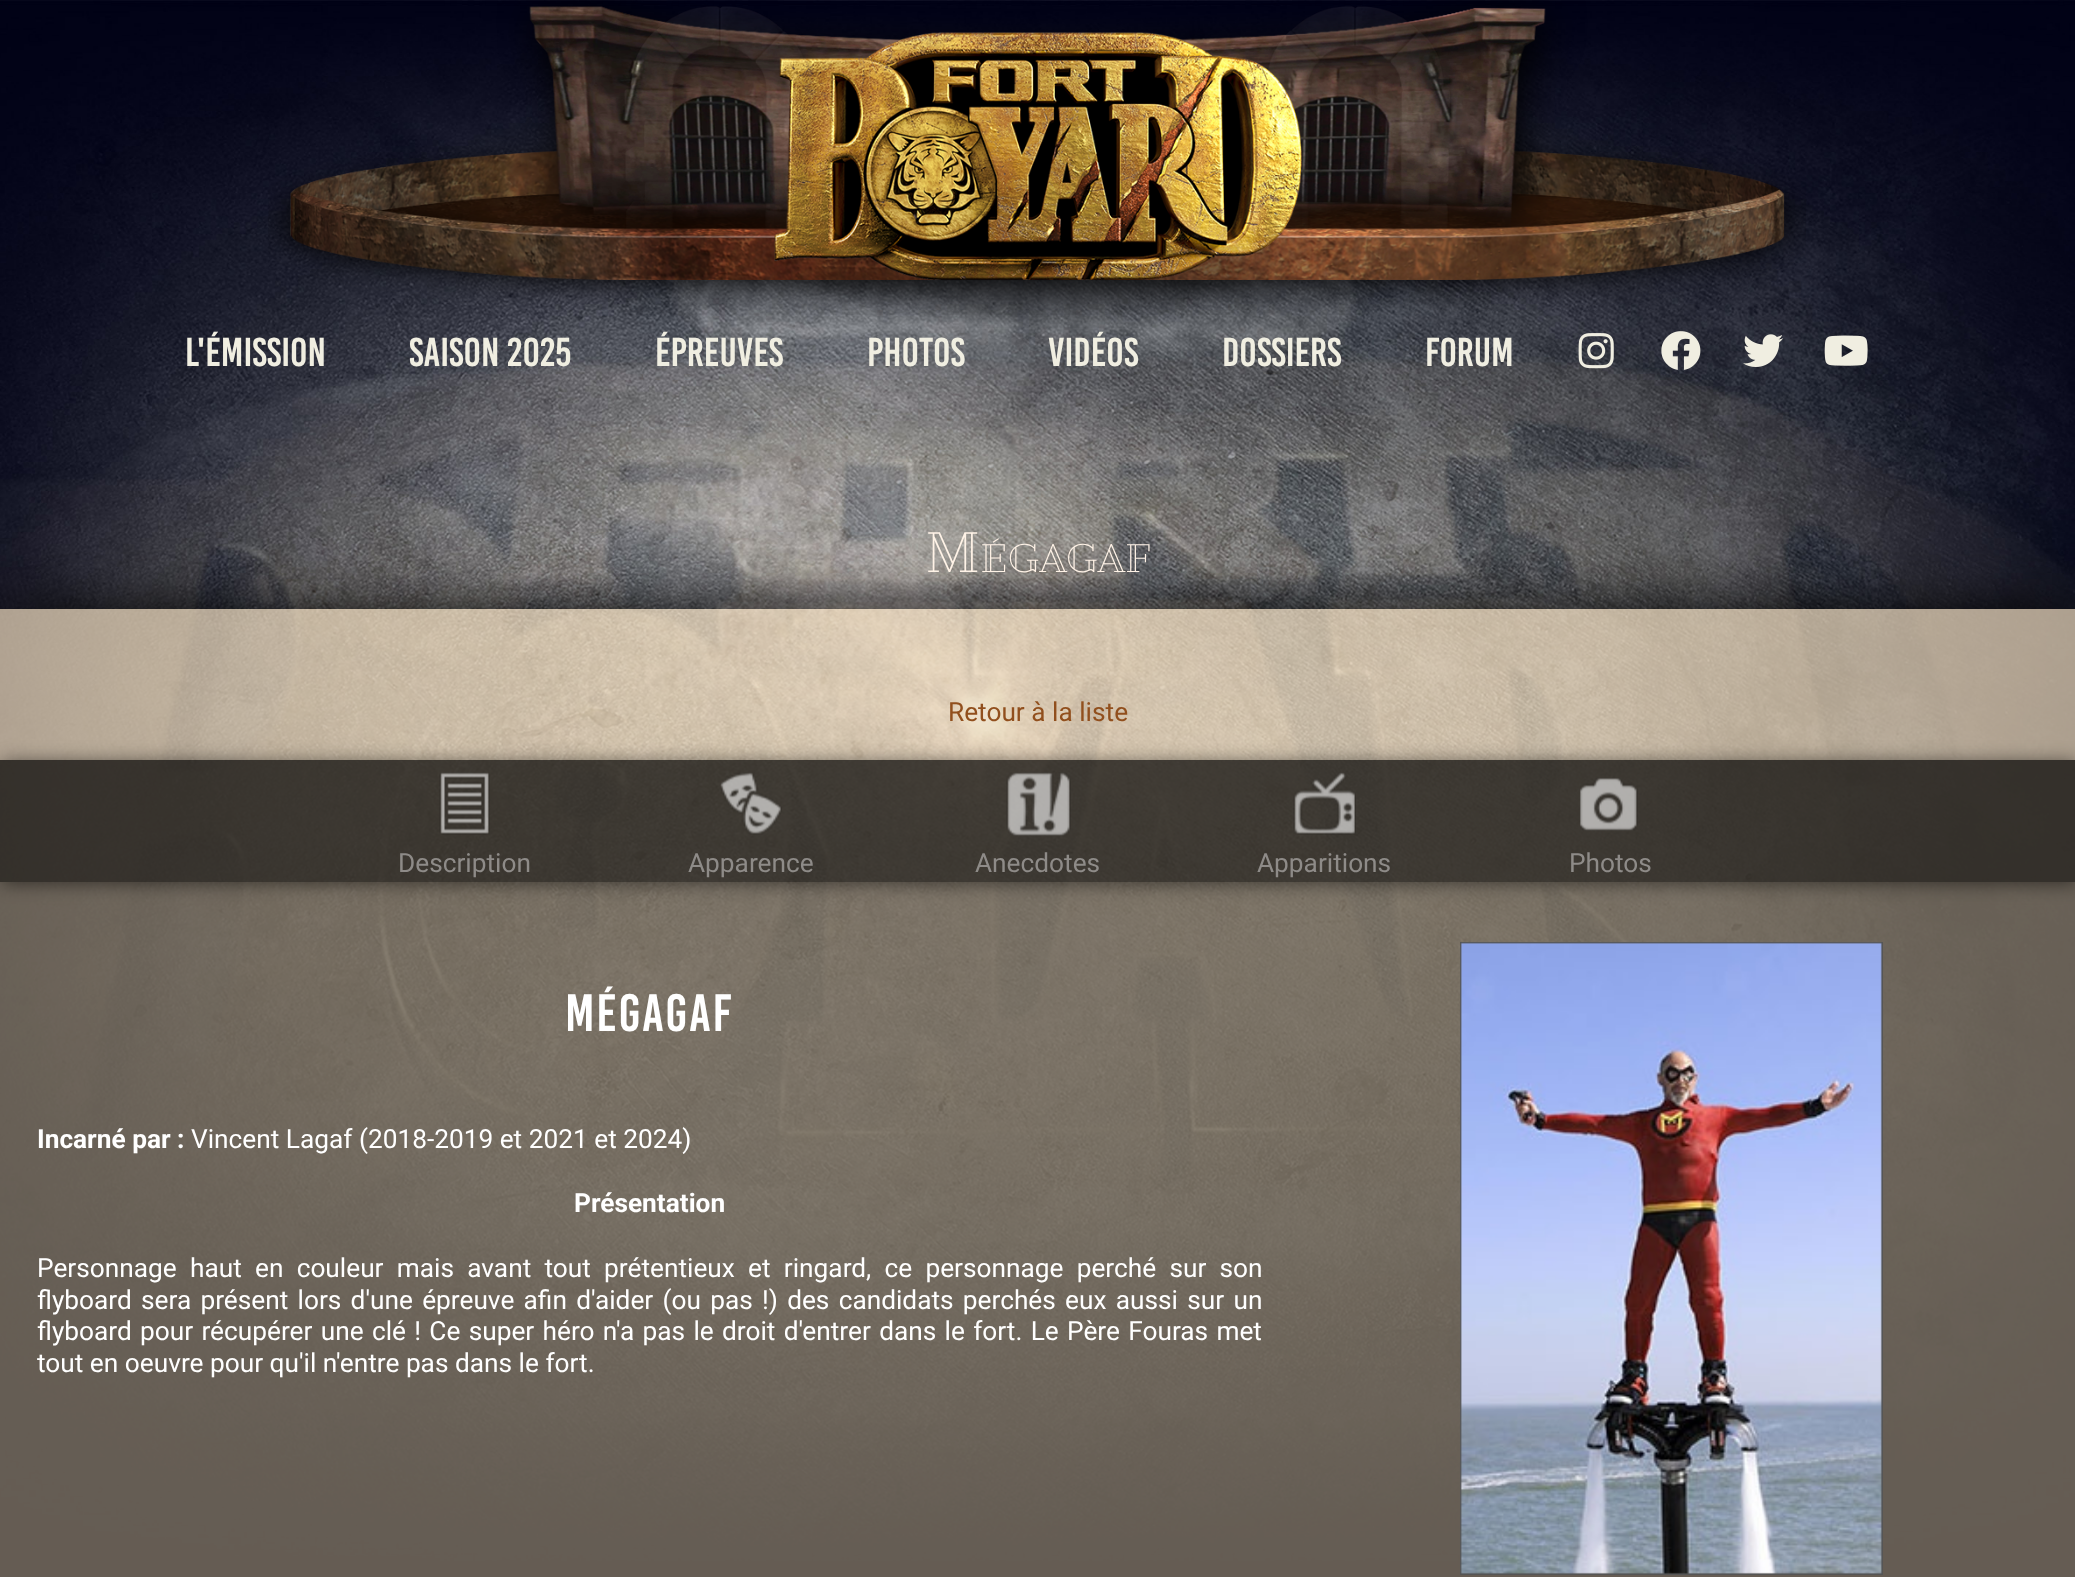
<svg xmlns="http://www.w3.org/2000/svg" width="2075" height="1577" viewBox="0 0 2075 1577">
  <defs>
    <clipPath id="clip1"><rect x="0" y="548" width="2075" height="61"/></clipPath>
    <clipPath id="clip2"><path d="M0 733H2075V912H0ZM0 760H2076V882H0Z" clip-rule="evenodd"/></clipPath>
  </defs>
  <rect width="100%" height="100%" fill="rgb(0,2,21)"/>
  <image x="0" y="0" width="2075" height="1561" href="pic1.png"/>
  <image x="268" y="0" width="1538" height="315" href="pic2.png"/>
  <image x="624" y="6" width="180" height="232" href="pic3.png"/>
  <image x="1267" y="6" width="183" height="232" href="pic4.png"/>
  <image x="291" y="189" width="1494" height="91" href="pic5.png"/>
  <image x="774" y="32" width="528" height="296" href="pic6.png"/>
  <g font-family="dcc" font-size="40.25" fill="rgb(240,238,225)">
    <text x="185" y="366">L'ÉMISSION</text>
    <text x="409" y="366">SAISON 2025</text>
    <text x="655" y="366">ÉPREUVES</text>
    <text x="867" y="366">PHOTOS</text>
    <text x="1048" y="366">VIDÉOS</text>
    <text x="1222" y="366">DOSSIERS</text>
    <text x="1425" y="366">FORUM</text>
  </g>
  <image x="1578" y="333" width="36" height="36" href="pic7.png"/>
  <image x="1661" y="331" width="40" height="39" href="pic8.png"/>
  <image x="1743" y="334" width="41" height="33" href="pic9.png"/>
  <image x="1824" y="335" width="44" height="31" href="pic10.png"/>
  <g clip-path="url(#clip1)">
    <rect x="2" y="611" width="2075" height="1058" fill="rgb(0,0,0)" filter="blur(30.5px)"/>
  </g>
  <text x="925" y="572" font-family="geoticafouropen" font-size="52.5" fill="rgb(255,243,231)">M</text>
  <text x="980" y="572" font-family="geoticafouropen" font-size="36.75" fill="rgb(255,243,231)">ÉGAGAF</text>
  <rect x="0" y="609" width="2075" height="968" fill="rgba(240,220,190,0.7)"/>
  <text x="948" y="721" font-family="Roboto" font-size="26.25" fill="rgb(145,79,29)">Retour à la liste</text>
  <g clip-path="url(#clip2)">
    <rect x="2" y="761" width="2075" height="123" fill="rgba(0,0,0,0.5)" filter="blur(9px)"/>
  </g>
  <rect x="0" y="760" width="2075" height="122" fill="rgba(0,0,0,0.7)"/>
  <image x="439" y="772" width="51" height="63" href="pic11.png"/>
  <text x="398" y="872" font-family="Roboto" font-size="26.25" fill="rgb(142,139,136)">Description</text>
  <image x="720" y="772" width="62" height="63" href="pic12.png"/>
  <text x="688" y="872" font-family="Roboto" font-size="26.25" fill="rgb(142,139,136)">Apparence</text>
  <image x="1006" y="772" width="65" height="64" href="pic13.png"/>
  <text x="975" y="872" font-family="Roboto" font-size="26.25" fill="rgb(142,139,136)">Anecdotes</text>
  <image x="1293" y="772" width="63" height="63" href="pic14.png"/>
  <text x="1257" y="872" font-family="Roboto" font-size="26.25" fill="rgb(142,139,136)">Apparitions</text>
  <image x="1580" y="778" width="58" height="53" href="pic15.png"/>
  <text x="1569" y="872" font-family="Roboto" font-size="26.25" fill="rgb(142,139,136)">Photos</text>
  <rect x="0" y="882" width="2075" height="695" fill="rgba(0,0,0,0.4)"/>
  <text x="565" y="1031" font-family="dcc" font-size="52.5" letter-spacing="1.75" fill="rgb(255,255,255)">Mégagaf</text>
  <text x="37" y="1148" font-family="Roboto" font-size="26.25" font-weight="bold" fill="rgb(255,255,255)">Incarné par :</text>
  <text x="191" y="1148" font-family="Roboto" font-size="26.25" fill="rgb(255,255,255)">Vincent Lagaf (2018-2019 et 2021 et 2024)</text>
  <text x="574" y="1212" font-family="Roboto" font-size="26.25" font-weight="bold" fill="rgb(255,255,255)">Présentation</text>
  <g font-family="Roboto" font-size="26.25" fill="rgb(255,255,255)">
    <text>
      <tspan x="37" y="1277" word-spacing="6.75">Personnage haut en couleur mais avant tout prétentieux et ringard, ce personnage perché sur son</tspan>
      <tspan x="37" y="1309" word-spacing="2.75">flyboard sera présent lors d'une épreuve afin d'aider (ou pas !) des candidats perchés eux aussi sur un</tspan>
      <tspan x="37" y="1340" word-spacing="1.8">flyboard pour récupérer une clé ! Ce super héro n'a pas le droit d'entrer dans le fort. Le Père Fouras met</tspan>
      <tspan x="37" y="1372">tout en oeuvre pour qu'il n'entre pas dans le fort.</tspan>
    </text>
  </g>
  <rect x="1461" y="943" width="421" height="631" fill="none" stroke="rgb(85,85,85)" stroke-width="2"/>
  <image x="1460" y="942" width="422" height="632" href="pic16.png"/>
</svg>
